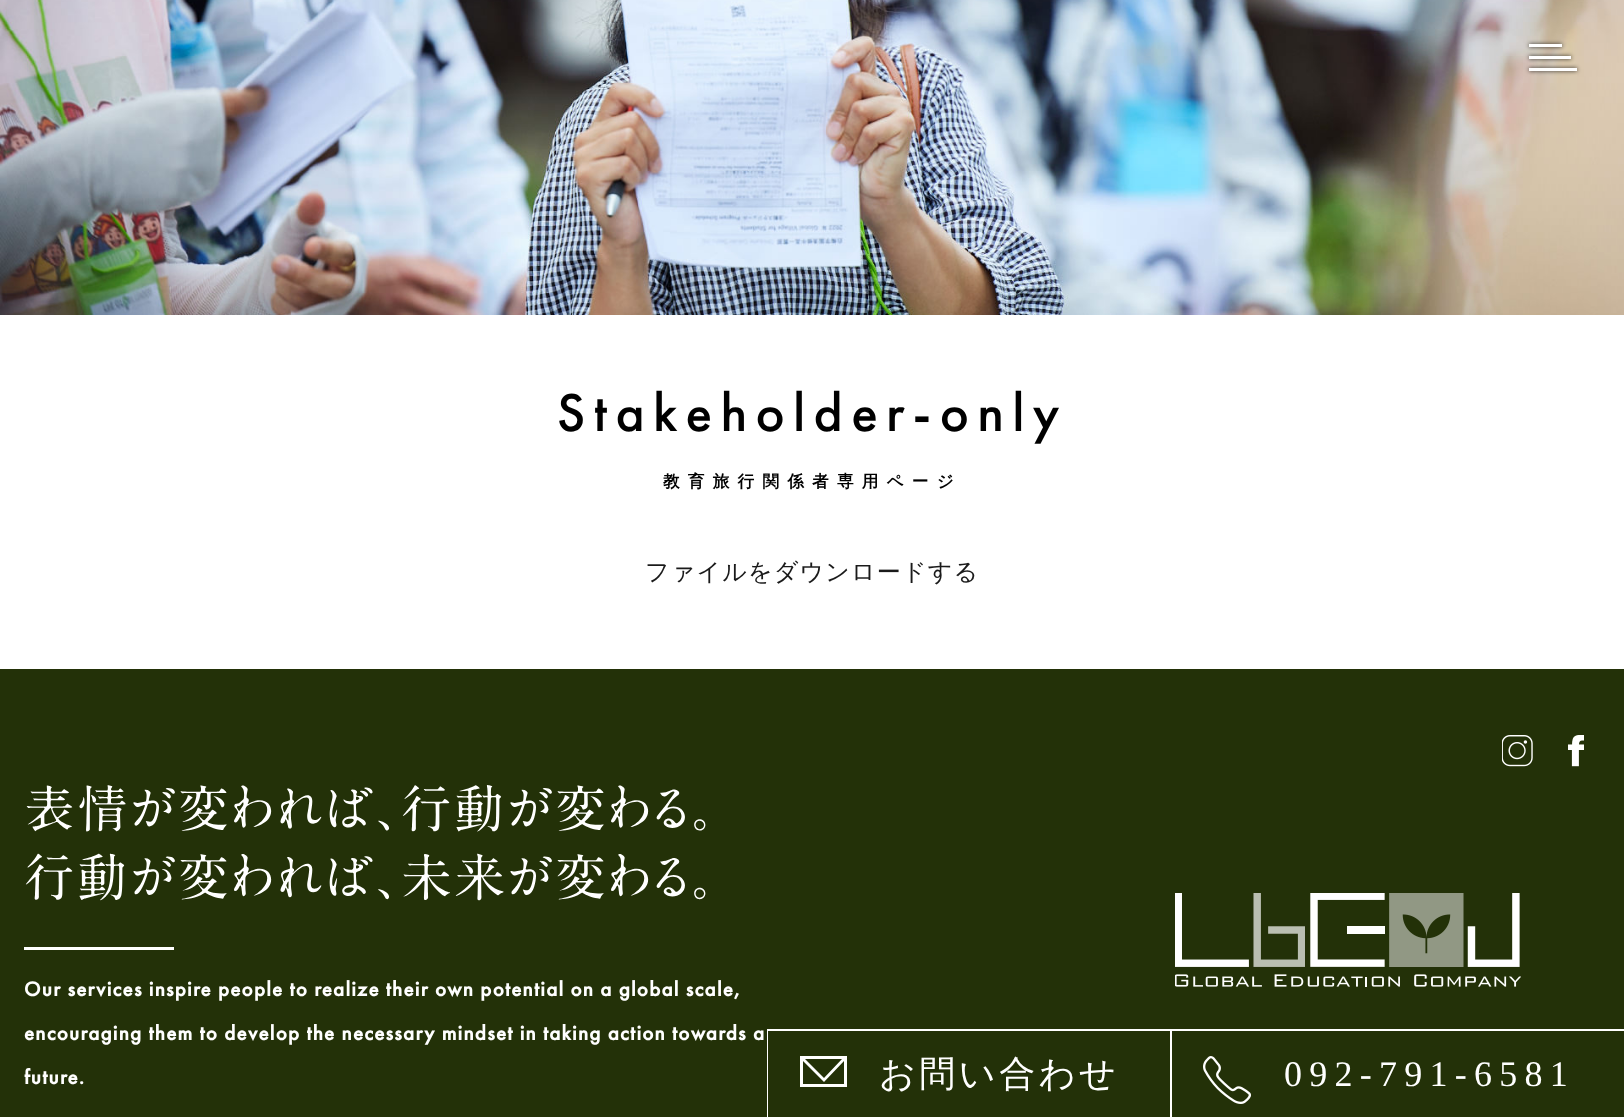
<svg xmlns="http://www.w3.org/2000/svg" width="1624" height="1117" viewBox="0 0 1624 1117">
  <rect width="100%" height="100%" fill="rgb(255,255,255)"/>
  <image x="0" y="0" width="1624" height="315" href="pic1.png"/>
  <rect x="1529" y="56" width="42" height="3" fill="rgba(0,0,0,0.8)" filter="blur(2px)"/>
  <rect x="1529" y="56" width="42" height="3" fill="rgb(255,255,255)"/>
  <rect x="1529" y="44" width="33" height="3" fill="rgba(0,0,0,0.8)" filter="blur(2px)"/>
  <rect x="1529" y="44" width="33" height="3" fill="rgb(255,255,255)"/>
  <rect x="1529" y="68" width="48" height="3" fill="rgba(0,0,0,0.8)" filter="blur(2px)"/>
  <rect x="1529" y="68" width="48" height="3" fill="rgb(255,255,255)"/>
  <text x="557" y="431" font-family="Futura PT" font-size="55.25" font-weight="500" letter-spacing="8.25" fill="rgb(0,0,0)">Stakeholder-only</text>
  <text x="663" y="487" font-family="WenQuanYi Zen Hei" font-size="16.6" font-weight="bold" letter-spacing="8.25" fill="rgb(0,0,0)">教育旅行関係者専用ページ</text>
  <text x="645" y="580" font-family="WenQuanYi Zen Hei" font-size="24" font-weight="500" letter-spacing="1.2" fill="rgb(26,26,26)">ファイルをダウンロードする</text>
  <rect x="0" y="669" width="1624" height="448" fill="rgb(35,49,8)"/>
  <image x="1502" y="735" width="31" height="32" href="pic2.png"/>
  <image x="1568" y="735" width="16" height="32" href="pic3.png"/>
  <image x="1175" y="893" width="346" height="94" href="pic4.png"/>
  <image x="25" y="785" width="681" height="116" href="pic5.png"/>
  <rect x="24" y="947" width="150" height="3" fill="rgb(255,255,255)"/>
  <g font-family="Futura PT" font-size="21" font-weight="bold" letter-spacing="1.2" fill="rgb(255,255,255)">
    <text x="24" y="996">Our services inspire people to realize their own potential on a global scale,</text>
    <text x="24" y="1040">encouraging them to develop the necessary mindset in taking action towards a</text>
    <text x="24" y="1084">future.</text>
  </g>
  <rect x="767" y="1029" width="857" height="2" fill="rgb(255,255,255)"/>
  <rect x="767" y="1029" width="2" height="88" fill="rgb(255,255,255)"/>
  <rect x="1170" y="1031" width="2" height="86" fill="rgb(255,255,255)"/>
  <rect x="768" y="1031" width="1" height="86" fill="rgb(35,49,8)"/>
  <path d="M800 1056V1087H847V1056ZM842 1059L824 1078L805 1059ZM844 1084H803V1061L824 1082L844 1061Z" fill="rgb(255,255,255)"/>
  <text x="879" y="1086" font-family="WenQuanYi Zen Hei" font-size="36" font-weight="500" letter-spacing="3.5" fill="rgb(255,255,255)">お問い合わせ</text>
  <image x="1203" y="1056" width="48" height="48" href="pic6.png"/>
  <text x="1284" y="1086" font-family="Liberation Serif" font-size="36" letter-spacing="7.25" fill="rgb(255,255,255)">092-791-6581</text>
</svg>
